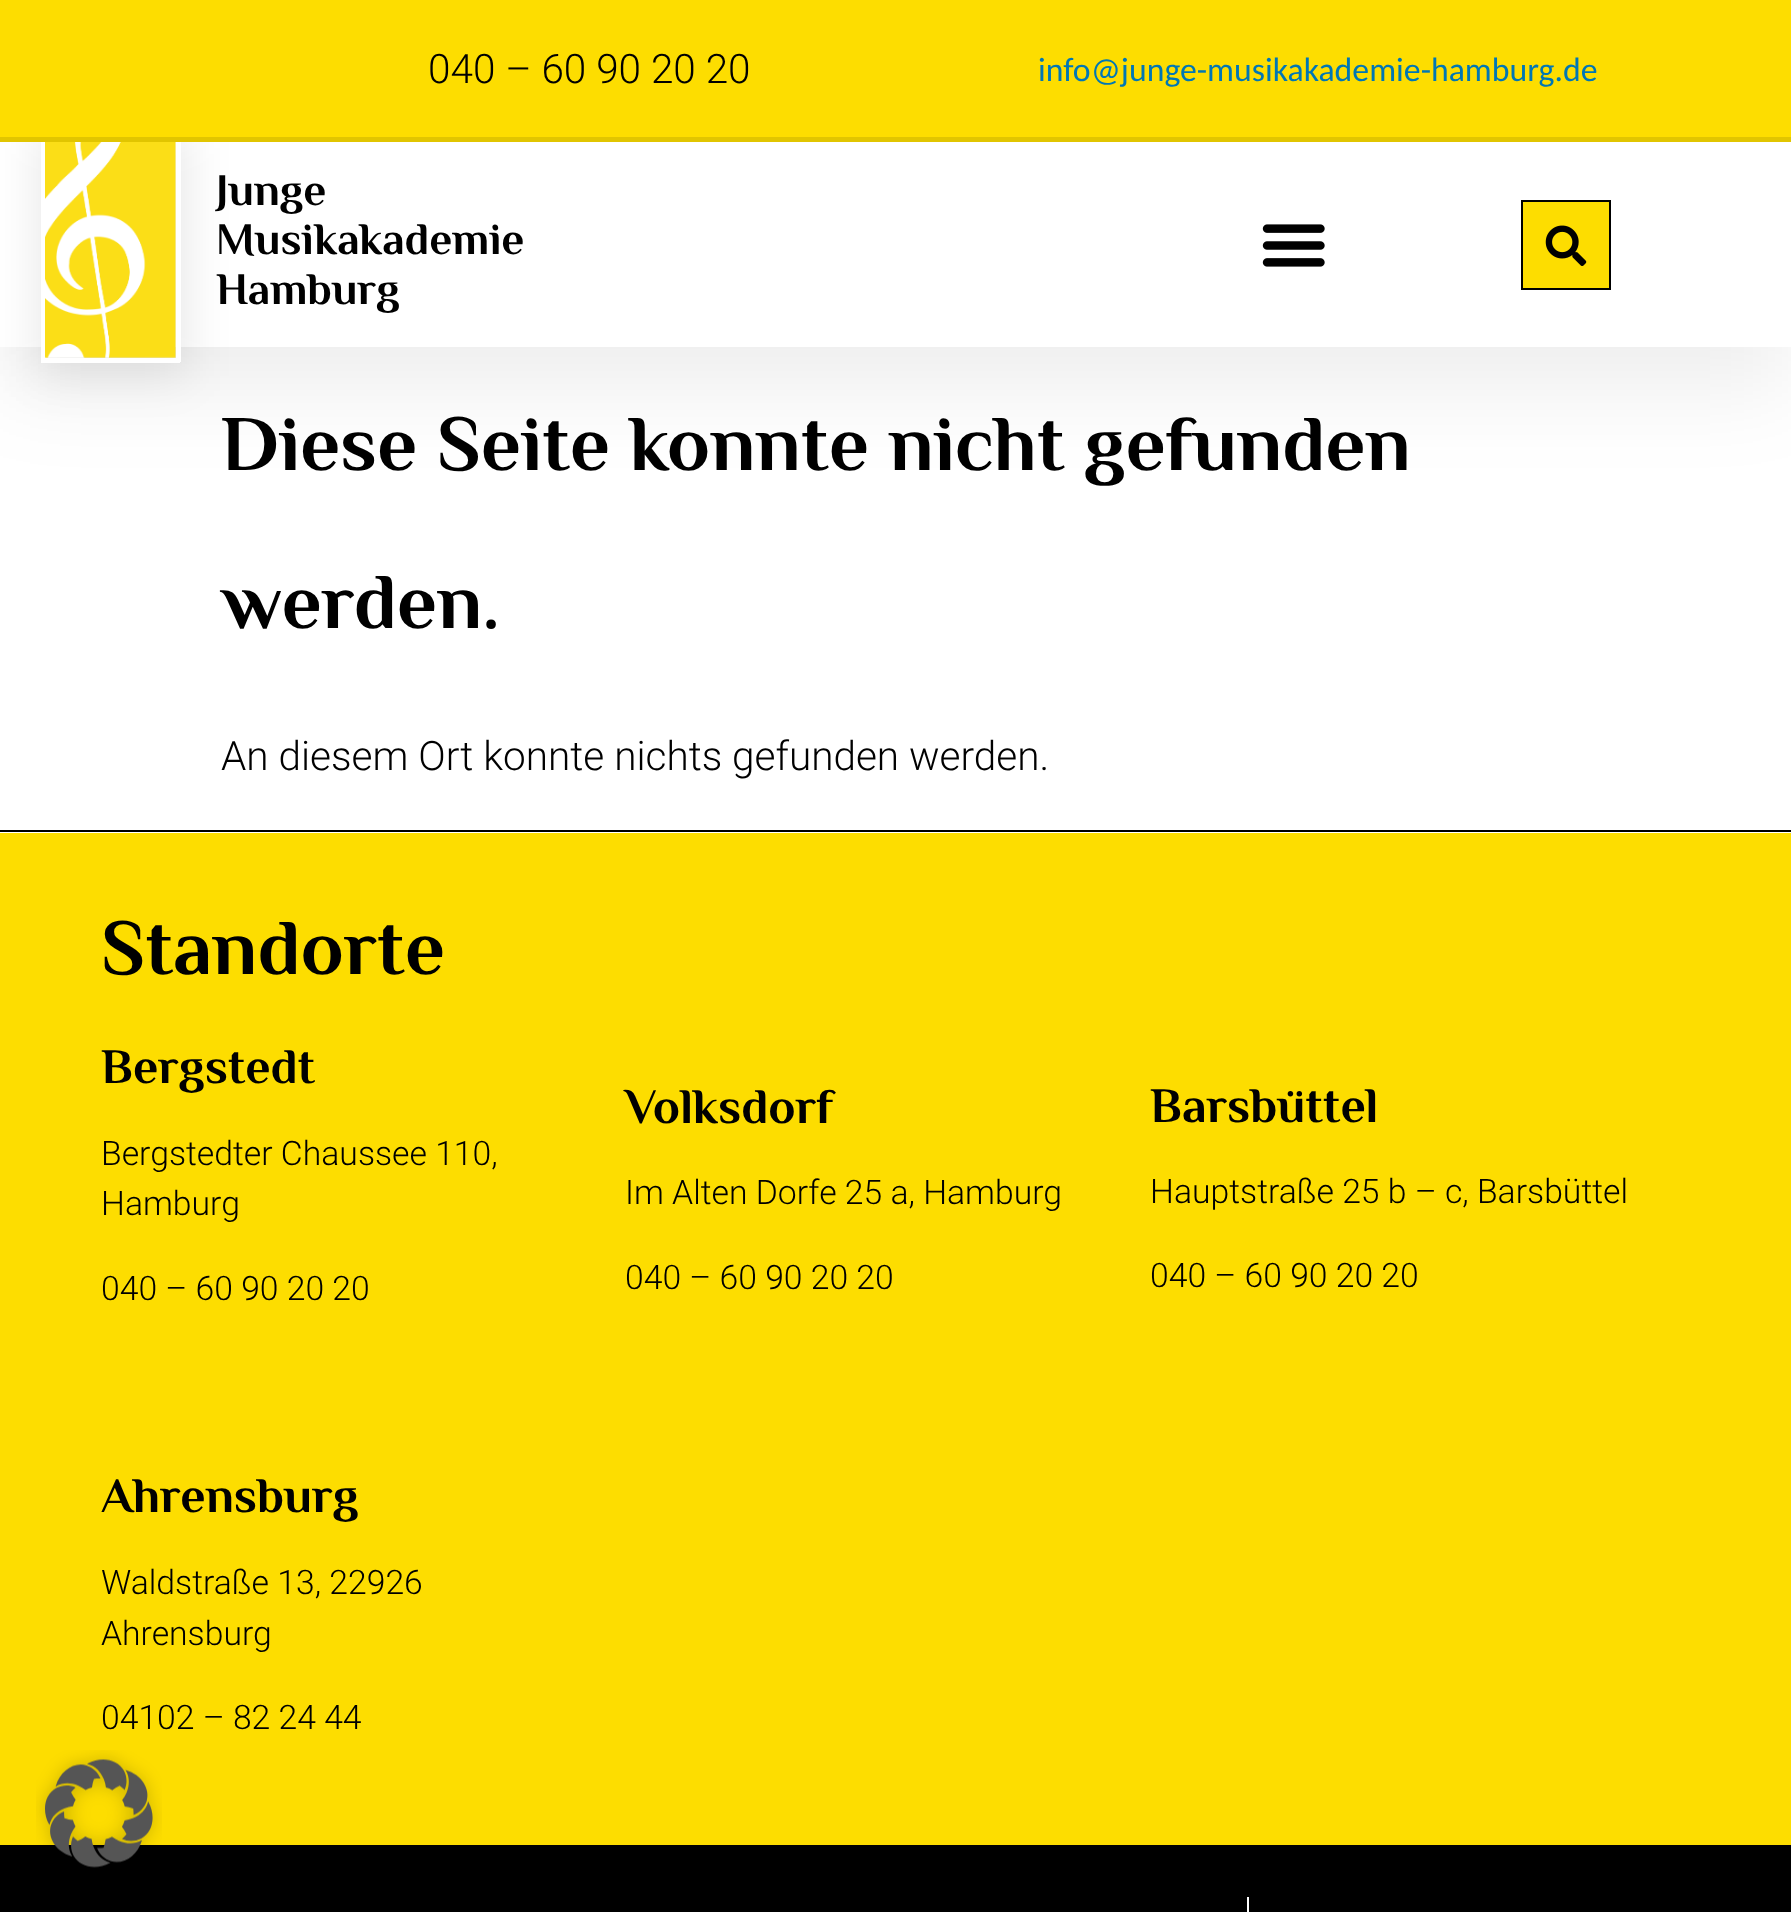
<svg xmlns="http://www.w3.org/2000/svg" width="1791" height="1912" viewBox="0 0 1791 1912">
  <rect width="100%" height="100%" fill="rgb(255,255,255)"/>
  <rect x="0" y="182" width="1791" height="205" fill="rgba(0,0,0,0.07)" filter="blur(45px)"/>
  <rect x="0" y="142" width="1791" height="205" fill="rgb(255,255,255)"/>
  <rect x="38" y="133" width="149" height="243" fill="rgba(0,0,0,0.09)" filter="blur(22.5px)"/>
  <rect x="0" y="0" width="1791" height="137" fill="rgb(253,221,0)"/>
  <rect x="0" y="137" width="1791" height="5" fill="rgb(225,197,0)"/>
  <text x="428" y="83" font-family="'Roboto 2'" font-size="40.5" font-weight="300" fill="rgb(0,0,0)">040 – 60 90 20 20</text>
  <text x="1038" y="81" font-family="Carlito" font-size="33.75" fill="rgb(0,119,181)">info@junge-musikakademie-hamburg.de</text>
  <rect x="176" y="142" width="5" height="220" fill="rgb(255,255,255)"/>
  <rect x="41" y="358" width="139" height="5" fill="rgb(255,255,255)"/>
  <rect x="41" y="142" width="5" height="220" fill="rgb(255,255,255)"/>
  <image x="45" y="142" width="131" height="216" href="pic1.png"/>
  <g font-family="Philosopher" font-size="45" font-weight="bold" fill="rgb(0,0,0)">
    <text>
      <tspan x="216" y="205">Junge</tspan>
      <tspan x="216" y="254">Musikakademie</tspan>
      <tspan x="216" y="304">Hamburg</tspan>
    </text>
  </g>
  <image x="1262" y="224" width="63" height="43" href="pic2.png"/>
  <rect x="1522" y="201" width="88" height="88" fill="rgb(253,221,0)" stroke="rgb(0,0,0)" stroke-width="2"/>
  <image x="1545" y="225" width="42" height="41" href="pic3.png"/>
  <g font-family="Philosopher" font-size="78.75" font-weight="bold" fill="rgb(0,0,0)">
    <text x="221" y="470">Diese Seite konnte nicht gefunden</text>
    <text x="221" y="628">werden.</text>
  </g>
  <text x="221" y="770" font-family="Roboto" font-size="40.5" font-weight="300" fill="rgb(0,0,0)">An diesem Ort konnte nichts gefunden werden.</text>
  <rect x="0" y="833" width="1791" height="1012" fill="rgb(253,221,0)"/>
  <rect x="0" y="830" width="1791" height="2" fill="rgb(0,0,0)"/>
  <text x="101" y="974" font-family="Philosopher" font-size="78.75" font-weight="bold" fill="rgb(0,0,0)">Standorte</text>
  <text x="101" y="1083" font-family="Philosopher" font-size="49.5" font-weight="bold" fill="rgb(0,0,0)">Bergstedt</text>
  <g font-family="'Roboto 2'" font-size="33.75" font-weight="300" fill="rgb(0,0,0)">
    <text>
      <tspan x="101" y="1165">Bergstedter Chaussee 110,</tspan>
      <tspan x="101" y="1215">Hamburg</tspan>
    </text>
    <text x="101" y="1300">040 – 60 90 20 20</text>
  </g>
  <text x="625" y="1123" font-family="Philosopher" font-size="49.5" font-weight="bold" fill="rgb(0,0,0)">Volksdorf</text>
  <g font-family="'Roboto 2'" font-size="33.75" font-weight="300" fill="rgb(0,0,0)">
    <text x="625" y="1204">Im Alten Dorfe 25 a, Hamburg</text>
    <text x="625" y="1289">040 – 60 90 20 20</text>
  </g>
  <text x="1150" y="1122" font-family="Philosopher" font-size="49.5" font-weight="bold" fill="rgb(0,0,0)">Barsbüttel</text>
  <g font-family="'Roboto 2'" font-size="33.75" font-weight="300" fill="rgb(0,0,0)">
    <text x="1150" y="1203">Hauptstraße 25 b – c, Barsbüttel</text>
    <text x="1150" y="1287">040 – 60 90 20 20</text>
  </g>
  <text x="101" y="1512" font-family="Philosopher" font-size="49.5" font-weight="bold" fill="rgb(0,0,0)">Ahrensburg</text>
  <g font-family="'Roboto 2'" font-size="33.75" font-weight="300" fill="rgb(0,0,0)">
    <text>
      <tspan x="101" y="1594">Waldstraße 13, 22926</tspan>
      <tspan x="101" y="1645">Ahrensburg</tspan>
    </text>
    <text x="101" y="1729">04102 – 82 24 44</text>
  </g>
  <rect x="0" y="1845" width="1791" height="67" fill="rgb(0,0,0)"/>
  <rect x="1247" y="1897" width="2" height="15" fill="rgb(255,255,255)"/>
  <image x="36" y="1750" width="126" height="118" href="pic4.png"/>
</svg>
